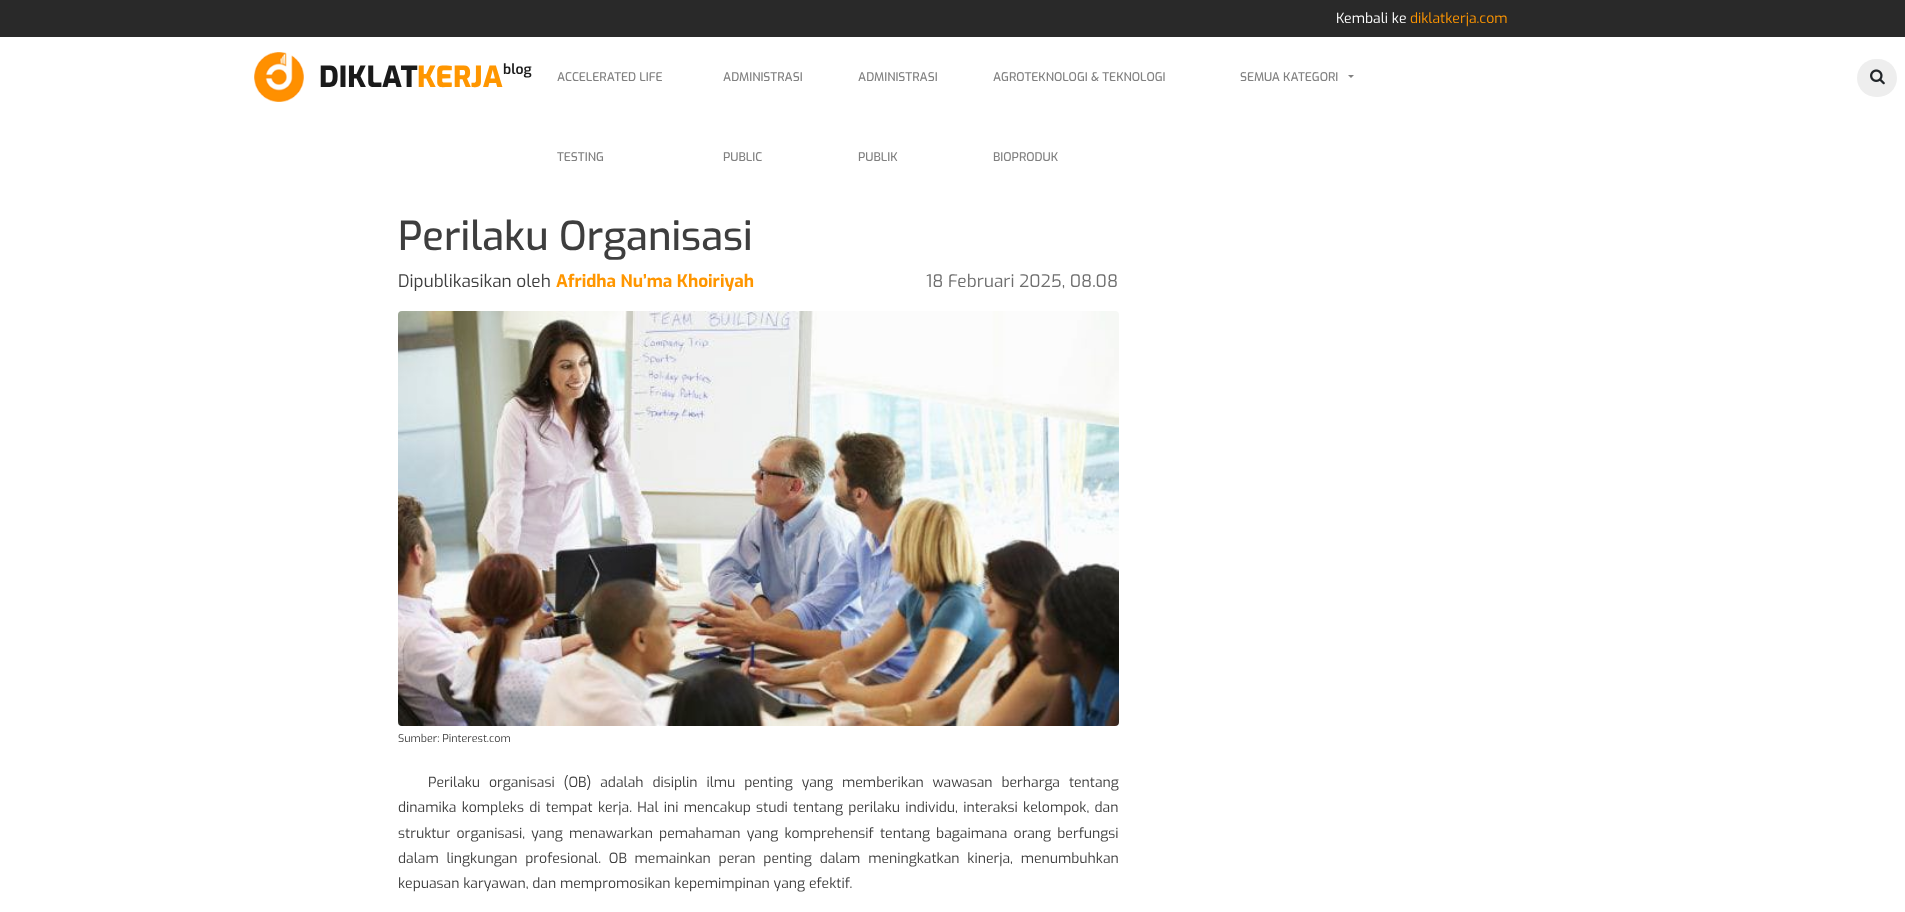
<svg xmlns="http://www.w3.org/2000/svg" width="1905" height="912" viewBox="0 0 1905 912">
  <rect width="100%" height="100%" fill="rgb(255,255,255)"/>
  <rect x="0" y="0" width="1905" height="37" fill="rgb(41,41,41)"/>
  <text x="1336" y="23" font-family="Exo" font-size="14" fill="rgb(255,255,255)">Kembali ke</text>
  <text x="1410" y="23" font-family="Exo" font-size="14" fill="rgb(255,150,0)">diklatkerja.com</text>
  <image x="254" y="52" width="50" height="50" href="pic1.png"/>
  <text x="319" y="87" font-family="Exo" font-size="29" font-weight="800" fill="rgb(26,26,26)">DIKLAT</text>
  <text x="417" y="87" font-family="Exo" font-size="29" font-weight="800" fill="rgb(255,150,0)">KERJA</text>
  <text x="503" y="74" font-family="Exo" font-size="14" font-weight="600" fill="rgb(26,26,26)">blog</text>
  <g font-family="Exo" font-size="12" font-weight="500" fill="rgb(128,128,128)">
    <text x="557" y="81">ACCELERATED LIFE</text>
    <text x="557" y="161">TESTING</text>
    <text x="723" y="81">ADMINISTRASI</text>
    <text x="723" y="161">PUBLIC</text>
    <text x="858" y="81">ADMINISTRASI</text>
    <text x="858" y="161">PUBLIK</text>
    <text x="993" y="81">AGROTEKNOLOGI &amp; TEKNOLOGI</text>
    <text x="993" y="161">BIOPRODUK</text>
    <text x="1240" y="81">SEMUA KATEGORI</text>
  </g>
  <path d="M1348 75H1354L1351 78Z" fill="rgb(128,128,128)"/>
  <rect x="1857" y="59" width="40" height="38" rx="19" fill="rgb(238,238,238)"/>
  <image x="1870" y="69" width="15" height="16" href="pic2.png"/>
  <text x="398" y="250" font-family="Exo" font-size="40" font-weight="500" fill="rgb(62,62,62)">Perilaku Organisasi</text>
  <text x="398" y="287" font-family="Exo" font-size="17.25" fill="rgb(62,62,62)">Dipublikasikan oleh</text>
  <text x="556" y="287" font-family="Exo" font-size="17.25" font-weight="bold" fill="rgb(255,150,0)">Afridha Nu’ma Khoiriyah</text>
  <text x="926" y="287" font-family="Exo" font-size="17.25" fill="rgb(110,110,110)">18 Februari 2025, 08.08</text>
  <image x="398" y="311" width="721" height="415" href="pic3.png"/>
  <text x="398" y="742" font-family="Exo" font-size="10.75" fill="rgb(62,62,62)">Sumber: Pinterest.com</text>
  <g font-family="Exo" font-size="14" fill="rgb(62,62,62)">
    <text x="428" y="787" word-spacing="5.1">Perilaku organisasi (OB) adalah disiplin ilmu penting yang memberikan wawasan berharga tentang</text>
    <text>
      <tspan x="398" y="812" word-spacing="1.5">dinamika kompleks di tempat kerja. Hal ini mencakup studi tentang perilaku individu, interaksi kelompok, dan</tspan>
      <tspan x="398" y="838" word-spacing="2.4">struktur organisasi, yang menawarkan pemahaman yang komprehensif tentang bagaimana orang berfungsi</tspan>
      <tspan x="398" y="863" word-spacing="4">dalam lingkungan profesional. OB memainkan peran penting dalam meningkatkan kinerja, menumbuhkan</tspan>
      <tspan x="398" y="888">kepuasan karyawan, dan mempromosikan kepemimpinan yang efektif.</tspan>
    </text>
  </g>
</svg>
